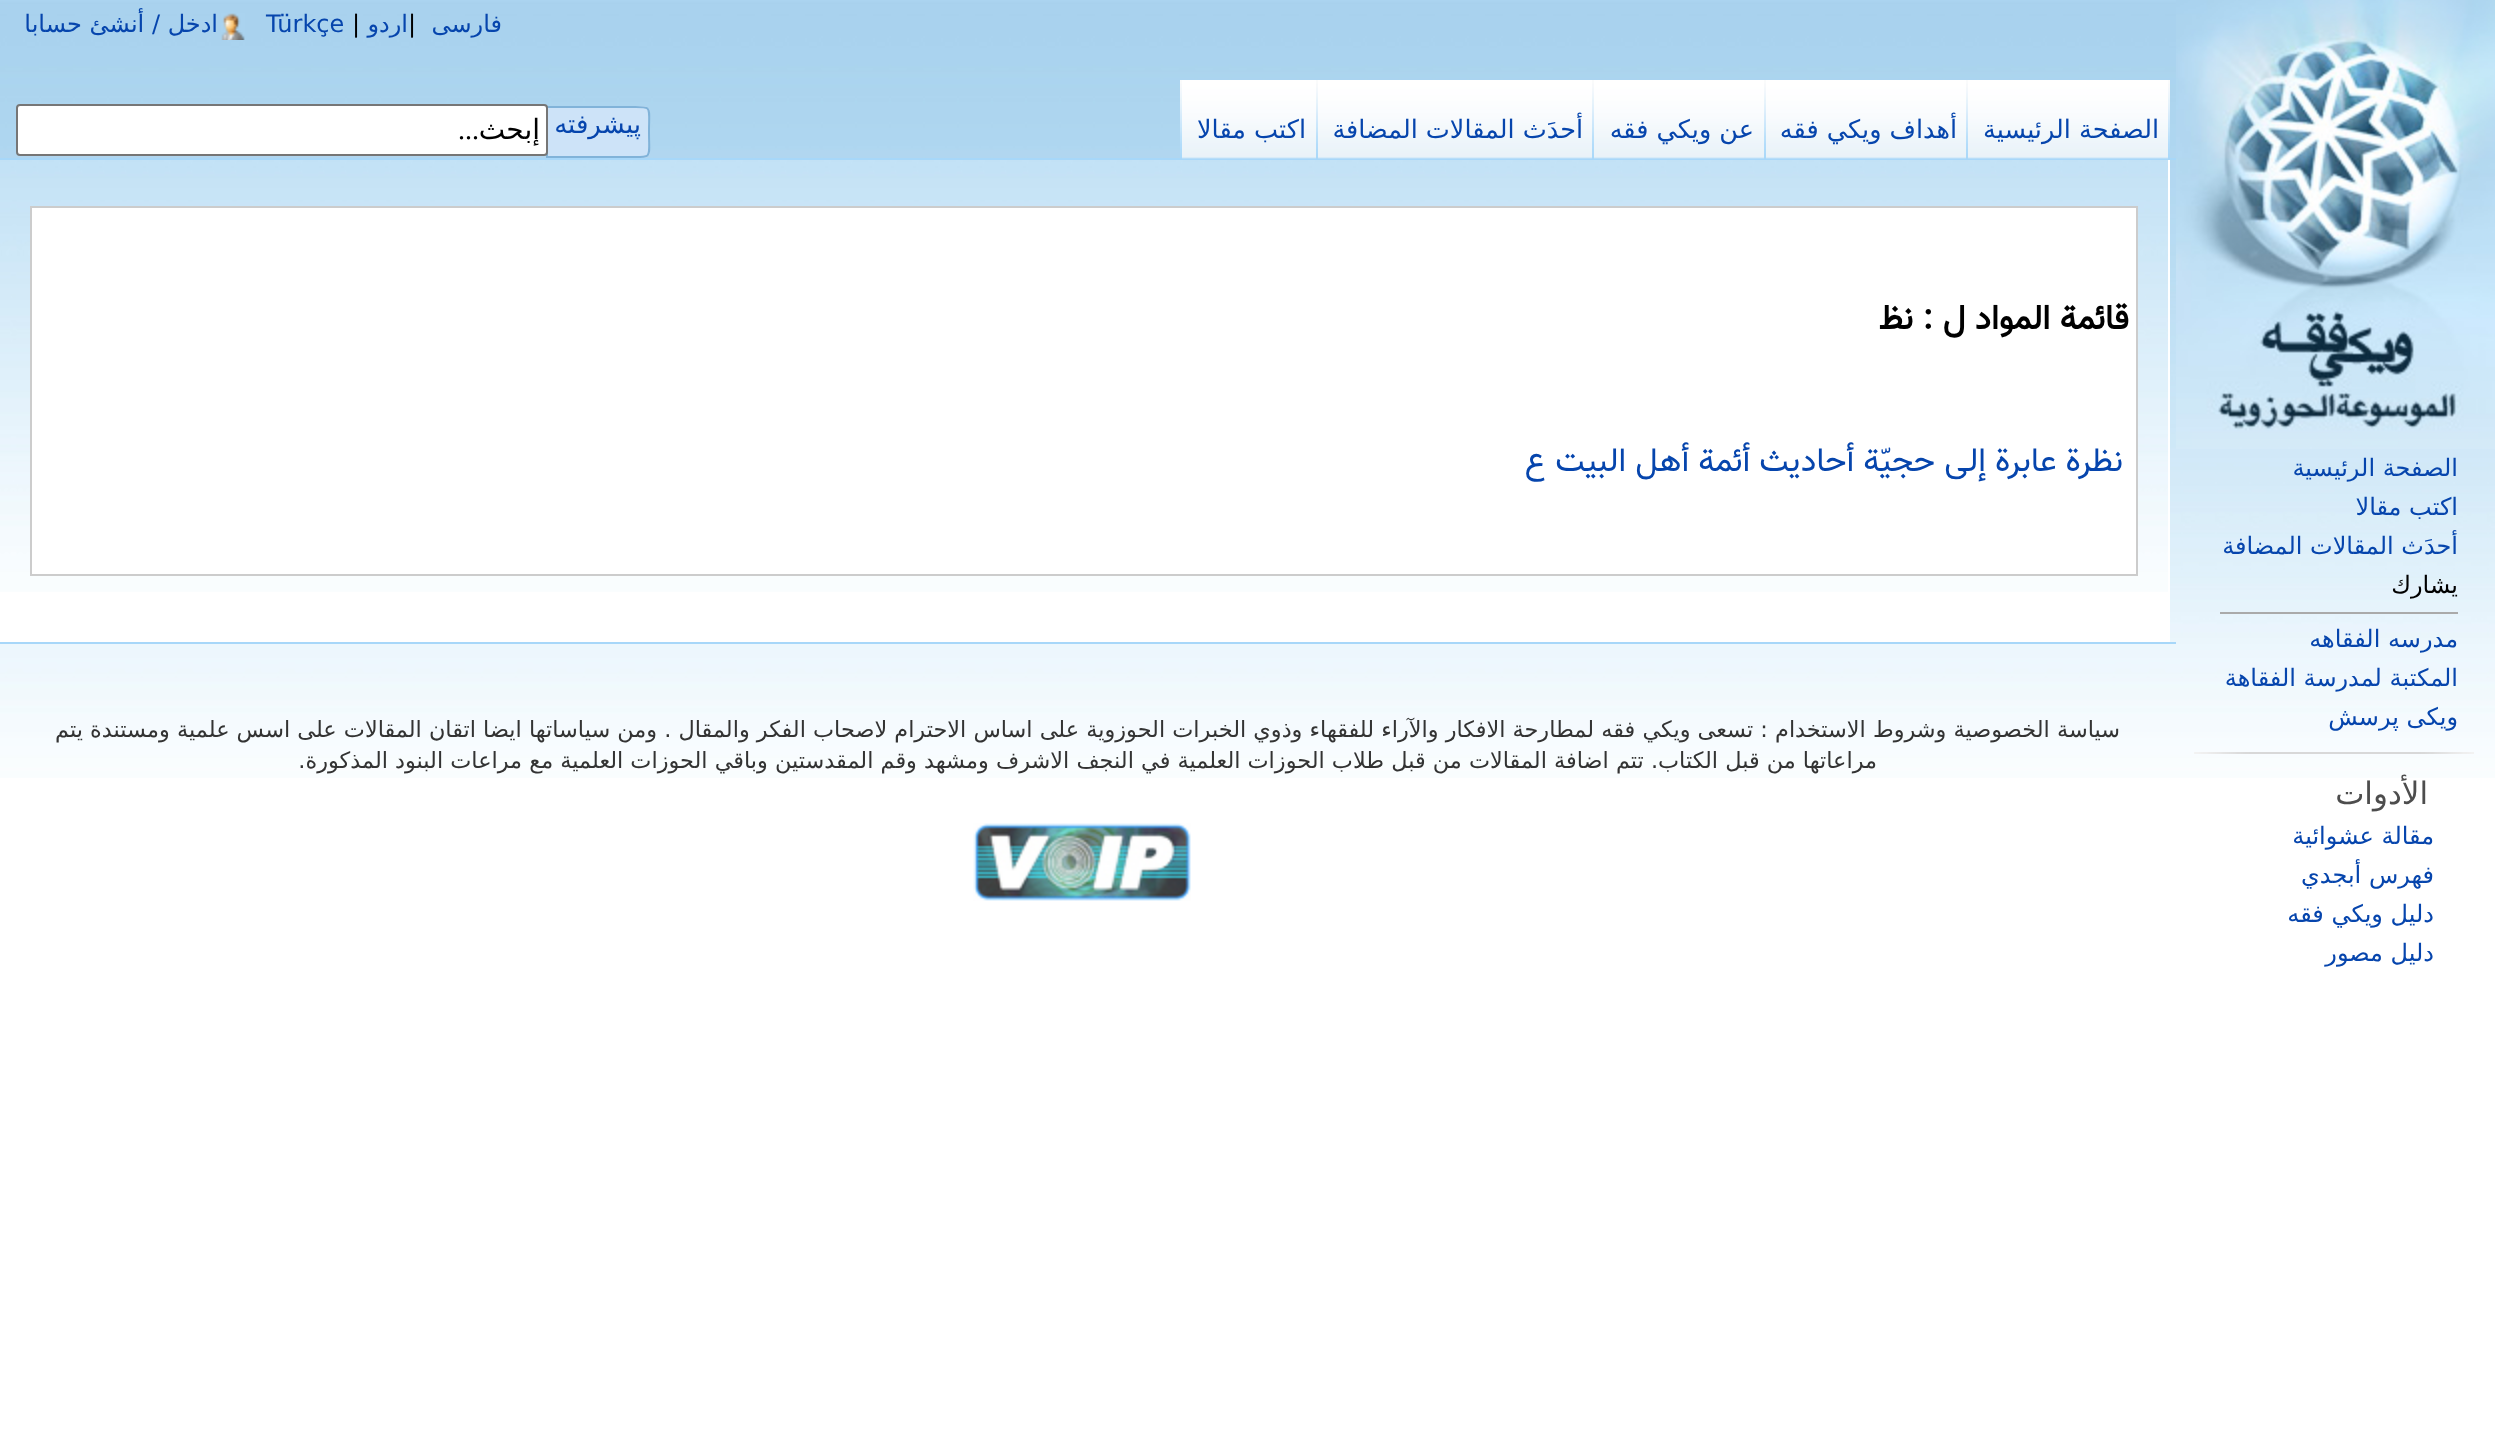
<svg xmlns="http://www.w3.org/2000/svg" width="2495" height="1454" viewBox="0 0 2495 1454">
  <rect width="100%" height="100%" fill="rgb(255,255,255)"/>
  <image x="0" y="0" width="2495" height="778" href="pic1.png"/>
  <text x="502" y="32" font-family="DejaVu Sans" font-size="24" direction="rtl" fill="rgb(6,69,173)">فارسی</text>
  <text x="408" y="32" font-family="DejaVu Sans" font-size="24" fill="rgb(0,0,0)">|</text>
  <text x="408" y="32" font-family="DejaVu Sans" font-size="24" direction="rtl" fill="rgb(6,69,173)">اردو</text>
  <text x="352" y="32" font-family="DejaVu Sans" font-size="24" fill="rgb(0,0,0)">|</text>
  <text x="266" y="32" font-family="DejaVu Sans" font-size="24" fill="rgb(6,69,173)">Türkçe</text>
  <image x="221" y="13" width="24" height="27" href="pic2.png"/>
  <text x="218" y="32" font-family="DejaVu Sans" font-size="24" direction="rtl" fill="rgb(6,69,173)">ادخل / أنشئ حسابا</text>
  <image x="2168" y="80" width="2" height="78" href="pic3.png"/>
  <rect x="0" y="158" width="2176" height="2" fill="rgb(167,215,249)"/>
  <image x="1966" y="80" width="202" height="80" href="pic4.png"/>
  <image x="1966" y="80" width="2" height="79" href="pic5.png"/>
  <text x="2159" y="138" font-family="DejaVu Sans" font-size="25.5" direction="rtl" fill="rgb(6,69,173)">الصفحة الرئيسية</text>
  <image x="1764" y="80" width="202" height="80" href="pic4.png"/>
  <image x="1764" y="80" width="2" height="79" href="pic5.png"/>
  <text x="1957" y="138" font-family="DejaVu Sans" font-size="25.5" direction="rtl" fill="rgb(6,69,173)">أهداف ويكي فقه</text>
  <image x="1592" y="80" width="172" height="80" href="pic6.png"/>
  <image x="1592" y="80" width="2" height="79" href="pic5.png"/>
  <text x="1754" y="138" font-family="DejaVu Sans" font-size="25.5" direction="rtl" fill="rgb(6,69,173)">عن ويكي فقه</text>
  <image x="1316" y="80" width="276" height="80" href="pic7.png"/>
  <image x="1316" y="80" width="2" height="79" href="pic5.png"/>
  <text x="1583" y="138" font-family="DejaVu Sans" font-size="25.5" direction="rtl" fill="rgb(6,69,173)">أحدَث المقالات المضافة</text>
  <image x="1180" y="80" width="136" height="80" href="pic8.png"/>
  <image x="1180" y="80" width="2" height="79" href="pic5.png"/>
  <text x="1306" y="138" font-family="DejaVu Sans" font-size="25.5" direction="rtl" fill="rgb(6,69,173)">اكتب مقالا</text>
  <path d="M546 106H641C646 106 650 108 650 111V153C650 156 646 158 641 158H546Z" fill="rgb(205,227,248)"/>
  <path d="M547 107H625C653.5 107 649 103.5 649 132C649 160.5 653.5 157 625 157H547Z" fill="none" stroke="rgb(129,179,217)" stroke-width="2"/>
  <text x="641" y="133" font-family="DejaVu Sans" font-size="26" direction="rtl" fill="rgb(6,69,173)">پیشرفته</text>
  <rect x="17" y="105" width="530" height="50" rx="3" fill="rgb(255,255,255)" stroke="rgb(118,118,118)" stroke-width="2"/>
  <text x="540" y="139" font-family="DejaVu Sans" font-size="28" direction="rtl" fill="rgb(0,0,0)">إبحث</text>
  <text x="479" y="139" font-family="Liberation Serif" font-size="28" direction="rtl" fill="rgb(0,0,0)">...</text>
  <rect x="0" y="592" width="2168" height="50" fill="rgb(255,255,255)"/>
  <image x="0" y="160" width="2168" height="432" href="pic9.png"/>
  <rect x="2168" y="160" width="2" height="482" fill="rgb(255,255,255)"/>
  <rect x="31" y="207" width="2106" height="368" fill="rgb(255,255,255)" stroke="rgb(204,204,204)" stroke-width="2"/>
  <text x="2129" y="329" font-family="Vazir" font-size="34" font-weight="bold" direction="rtl" fill="rgb(0,0,0)">قائمة المواد ل : نظ</text>
  <text x="2123" y="471" font-family="Vazir" font-size="33" direction="rtl" fill="rgb(6,69,173)">نظرة عابرة إلى حجيّة أحاديث أئمة أهل البيت ع</text>
  <image x="2176" y="0" width="319" height="449" href="pic10.png"/>
  <g font-family="DejaVu Sans" font-size="24" direction="rtl" fill="rgb(6,69,173)">
    <text>
      <tspan x="2458" y="476">الصفحة الرئيسية</tspan>
      <tspan x="2458" y="515">اكتب مقالا</tspan>
      <tspan x="2458" y="554">أحدَث المقالات المضافة</tspan>
    </text>
  </g>
  <text x="2458" y="593" font-family="DejaVu Sans" font-size="24" direction="rtl" fill="rgb(0,0,0)">يشارك</text>
  <rect x="2220" y="612" width="238" height="2" fill="rgb(170,170,170)"/>
  <g font-family="DejaVu Sans" font-size="24" direction="rtl" fill="rgb(6,69,173)">
    <text>
      <tspan x="2458" y="647">مدرسه الفقاهه</tspan>
      <tspan x="2458" y="686">المكتبة لمدرسة الفقاهة</tspan>
      <tspan x="2458" y="725">ویکی پرسش</tspan>
    </text>
  </g>
  <image x="2194" y="752" width="280" height="2" href="pic11.png"/>
  <text x="2428" y="804" font-family="DejaVu Sans" font-size="31" direction="rtl" fill="rgb(77,77,77)">الأدوات</text>
  <g font-family="DejaVu Sans" font-size="24" direction="rtl" fill="rgb(6,69,173)">
    <text>
      <tspan x="2434" y="844">مقالة عشوائية</tspan>
      <tspan x="2434" y="883">فهرس أبجدي</tspan>
      <tspan x="2434" y="922">دليل ويكي فقه</tspan>
      <tspan x="2434" y="961">دليل مصور</tspan>
    </text>
  </g>
  <rect x="0" y="642" width="2176" height="2" fill="rgb(167,215,249)"/>
  <g font-family="DejaVu Sans" font-size="22.4" direction="rtl" fill="rgb(51,51,51)">
    <text x="2120" y="737">سياسة الخصوصية وشروط الاستخدام : تسعى ويكي فقه لمطارحة الافكار والآراء للفقهاء وذوي الخبرات الحوزوية على اساس الاحترام لاصحاب الفكر والمقال . ومن سياساتها ايضا اتقان المقالات على اسس علمية ومستندة يتم</text>
    <text x="1877" y="768">مراعاتها من قبل الكتاب. تتم اضافة المقالات من قبل طلاب الحوزات العلمية في النجف الاشرف ومشهد وقم المقدستين وباقي الحوزات العلمية مع مراعات البنود المذكورة.</text>
  </g>
  <image x="973" y="823" width="218" height="78" href="pic12.png"/>
</svg>
